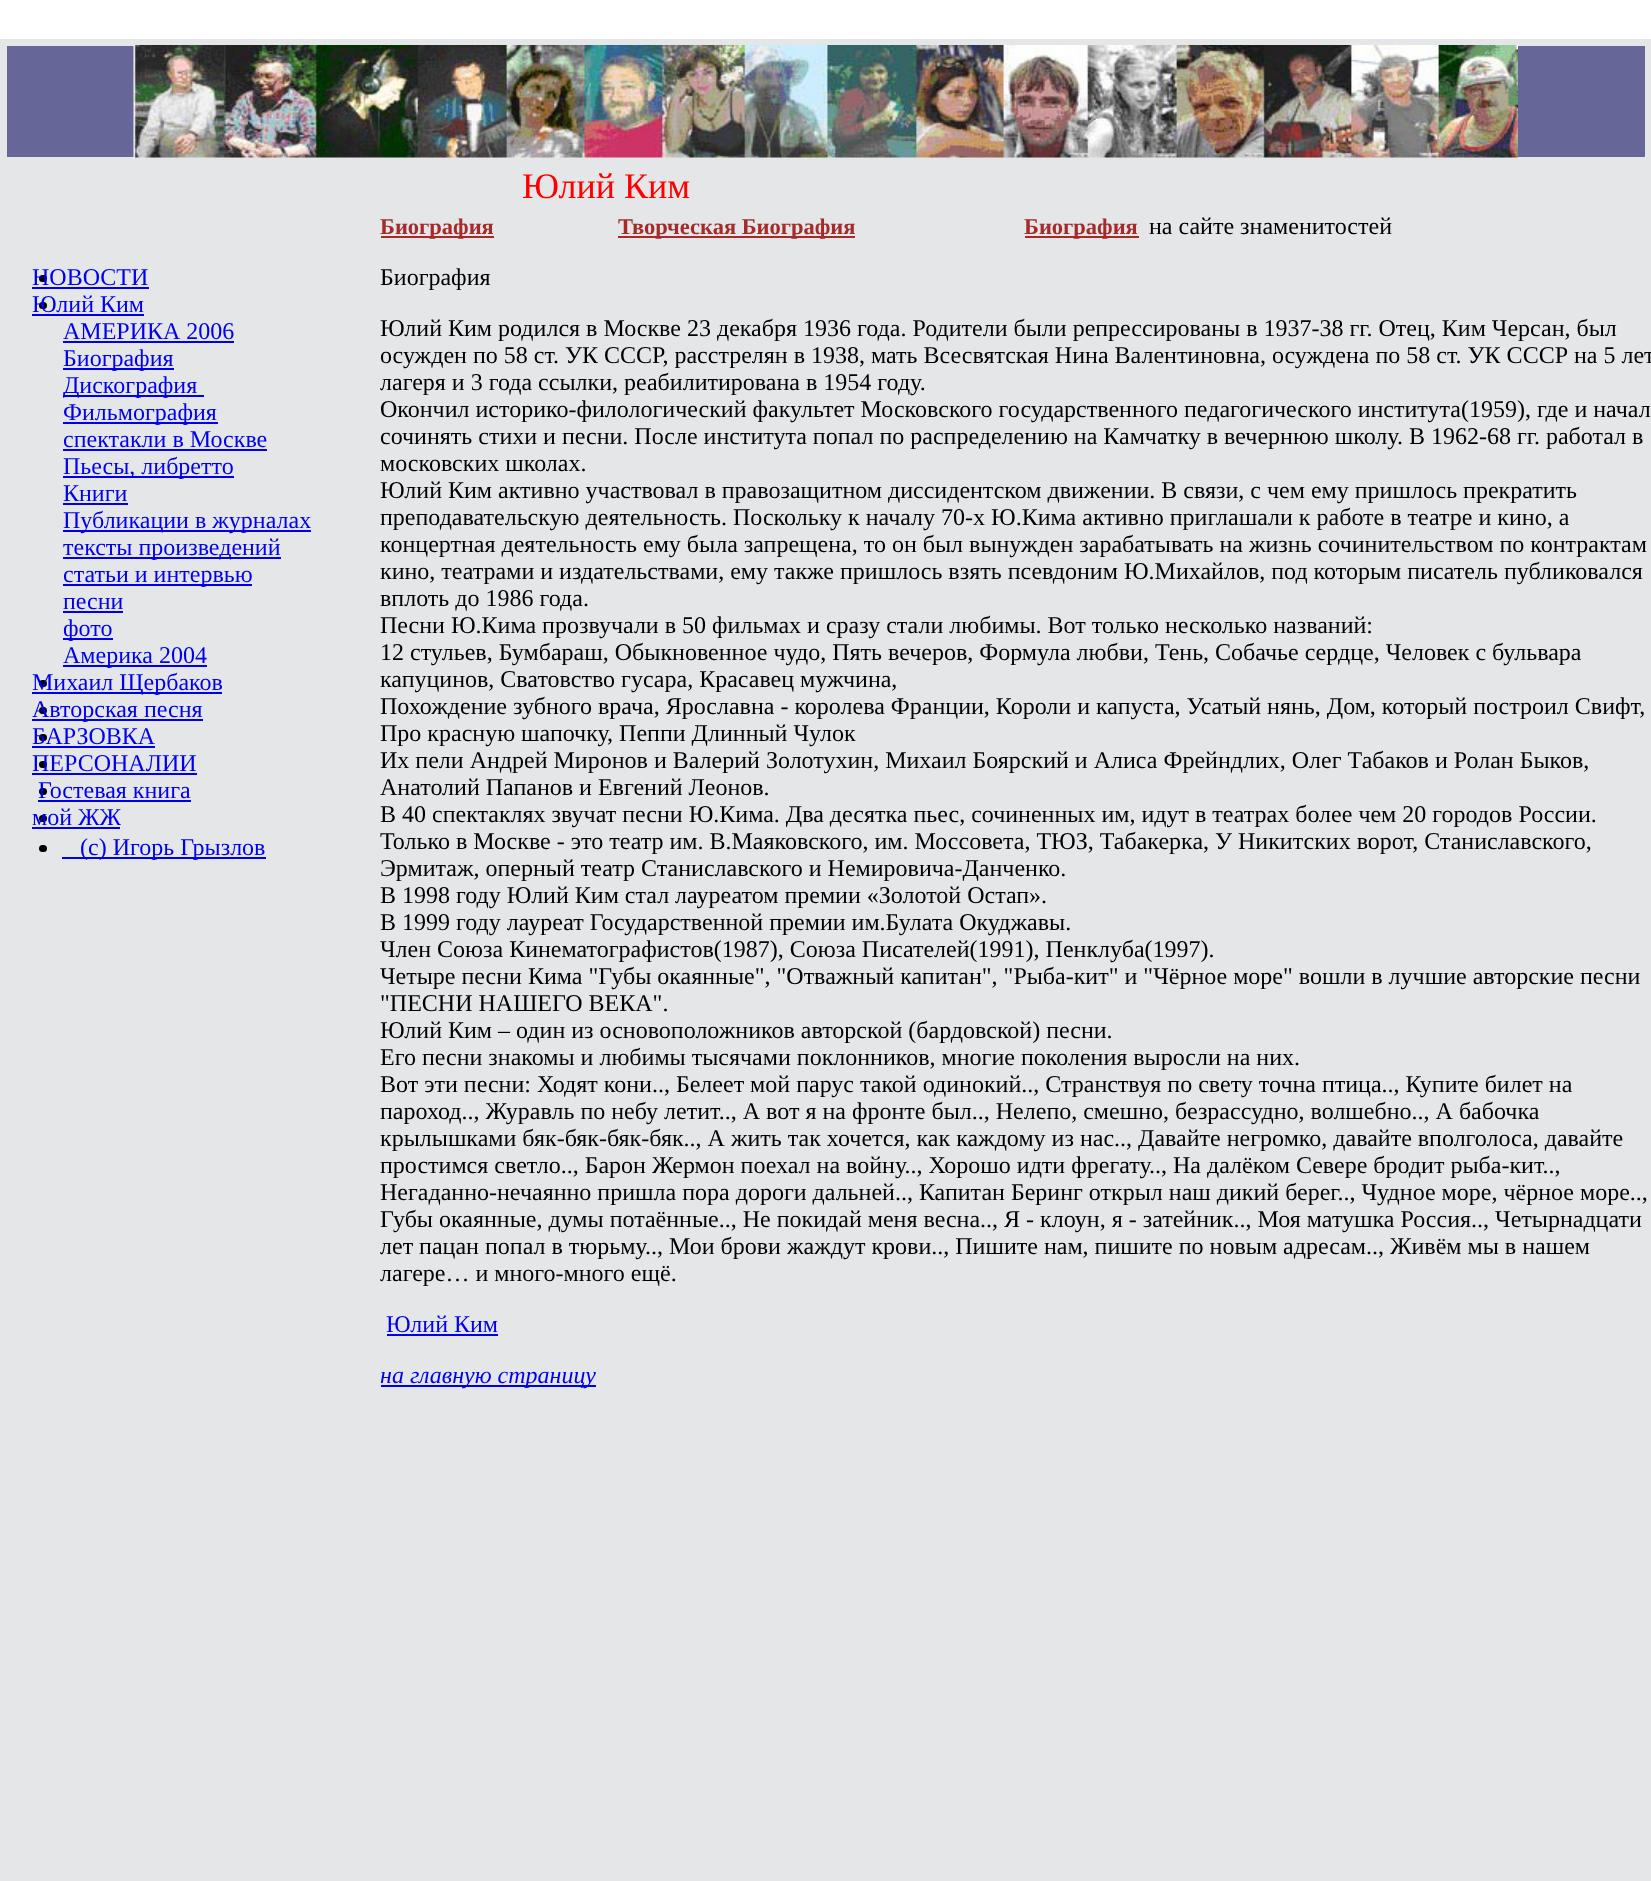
<svg xmlns="http://www.w3.org/2000/svg" width="1651" height="1881" viewBox="0 0 1651 1881">
  <rect width="100%" height="100%" fill="rgb(255,255,255)"/>
  <rect x="1" y="40" width="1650" height="123" fill="none" stroke="rgb(228,230,232)" stroke-width="2"/>
  <rect x="7" y="46" width="1638" height="111" fill="rgb(102,102,153)"/>
  <rect x="3" y="42" width="1646" height="119" fill="none" stroke="rgb(228,230,232)" stroke-width="2"/>
  <rect x="4" y="43" width="1644" height="117" fill="none" stroke="rgb(228,230,232)" stroke-width="2"/>
  <rect x="6" y="45" width="1640" height="113" fill="none" stroke="rgb(228,230,232)" stroke-width="2"/>
  <image x="133" y="45" width="1385" height="113" href="pic1.png"/>
  <rect x="1" y="165" width="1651" height="44" fill="none" stroke="rgb(228,230,232)" stroke-width="2"/>
  <rect x="2" y="166" width="1649" height="42" fill="rgb(228,230,232)"/>
  <text x="522" y="198" font-family="Liberation Serif" font-size="36" fill="rgb(255,0,0)">Юлий Ким</text>
  <rect x="1" y="211" width="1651" height="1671" fill="none" stroke="rgb(228,230,232)" stroke-width="2"/>
  <rect x="2" y="212" width="1649" height="1669" fill="rgb(228,230,232)"/>
  <rect x="39" y="275" width="8" height="7" rx="3.5" fill="rgb(0,0,0)"/>
  <text x="32" y="285" font-family="Liberation Serif" font-size="24" fill="rgb(0,0,238)">НОВОСТИ</text>
  <rect x="32" y="287" width="117" height="2" fill="rgb(0,0,238)"/>
  <rect x="39" y="302" width="8" height="7" rx="3.5" fill="rgb(0,0,0)"/>
  <text x="32" y="312" font-family="Liberation Serif" font-size="24" fill="rgb(0,0,238)">Юлий Ким</text>
  <rect x="32" y="314" width="112" height="2" fill="rgb(0,0,238)"/>
  <text x="63" y="339" font-family="Liberation Serif" font-size="24" fill="rgb(0,0,238)">АМЕРИКА 2006</text>
  <rect x="63" y="341" width="171" height="2" fill="rgb(0,0,238)"/>
  <rect x="63" y="368" width="111" height="2" fill="rgb(0,0,238)"/>
  <text x="63" y="366" font-family="Liberation Serif" font-size="24" fill="rgb(0,0,238)">Биография</text>
  <rect x="63" y="395" width="141" height="2" fill="rgb(0,0,238)"/>
  <text x="63" y="393" font-family="Liberation Serif" font-size="24" fill="rgb(0,0,238)">Дискография</text>
  <rect x="63" y="422" width="155" height="2" fill="rgb(0,0,238)"/>
  <g font-family="Liberation Serif" font-size="24" fill="rgb(0,0,238)">
    <text>
      <tspan x="63" y="420">Фильмография</tspan>
      <tspan x="63" y="447">спектакли в Москве</tspan>
    </text>
  </g>
  <rect x="63" y="449" width="204" height="2" fill="rgb(0,0,238)"/>
  <rect x="63" y="476" width="171" height="2" fill="rgb(0,0,238)"/>
  <g font-family="Liberation Serif" font-size="24" fill="rgb(0,0,238)">
    <text>
      <tspan x="63" y="474">Пьесы, либретто</tspan>
      <tspan x="63" y="501">Книги</tspan>
    </text>
  </g>
  <rect x="63" y="503" width="65" height="2" fill="rgb(0,0,238)"/>
  <rect x="63" y="530" width="248" height="2" fill="rgb(0,0,238)"/>
  <text x="63" y="528" font-family="Liberation Serif" font-size="24" fill="rgb(0,0,238)">Публикации в журналах</text>
  <rect x="63" y="557" width="218" height="2" fill="rgb(0,0,238)"/>
  <text x="63" y="555" font-family="Liberation Serif" font-size="24" fill="rgb(0,0,238)">тексты произведений</text>
  <rect x="63" y="584" width="189" height="2" fill="rgb(0,0,238)"/>
  <g font-family="Liberation Serif" font-size="24" fill="rgb(0,0,238)">
    <text>
      <tspan x="63" y="582">статьи и интервью</tspan>
      <tspan x="63" y="609">песни</tspan>
    </text>
  </g>
  <rect x="63" y="611" width="60" height="2" fill="rgb(0,0,238)"/>
  <rect x="63" y="638" width="50" height="2" fill="rgb(0,0,238)"/>
  <text x="63" y="636" font-family="Liberation Serif" font-size="24" fill="rgb(0,0,238)">фото</text>
  <rect x="63" y="665" width="144" height="2" fill="rgb(0,0,238)"/>
  <text x="63" y="663" font-family="Liberation Serif" font-size="24" fill="rgb(0,0,238)">Америка 2004</text>
  <rect x="32" y="692" width="190" height="2" fill="rgb(0,0,238)"/>
  <rect x="39" y="680" width="8" height="7" rx="3.5" fill="rgb(0,0,0)"/>
  <text x="32" y="690" font-family="Liberation Serif" font-size="24" fill="rgb(0,0,238)">Михаил Щербаков</text>
  <rect x="32" y="719" width="171" height="2" fill="rgb(0,0,238)"/>
  <rect x="39" y="707" width="8" height="7" rx="3.5" fill="rgb(0,0,0)"/>
  <text x="32" y="717" font-family="Liberation Serif" font-size="24" fill="rgb(0,0,238)">Авторская песня</text>
  <rect x="39" y="734" width="8" height="7" rx="3.5" fill="rgb(0,0,0)"/>
  <text x="32" y="744" font-family="Liberation Serif" font-size="24" fill="rgb(0,0,238)">БАРЗОВКА</text>
  <rect x="32" y="746" width="123" height="2" fill="rgb(0,0,238)"/>
  <rect x="39" y="761" width="8" height="7" rx="3.5" fill="rgb(0,0,0)"/>
  <text x="32" y="771" font-family="Liberation Serif" font-size="24" fill="rgb(0,0,238)">ПЕРСОНАЛИИ</text>
  <rect x="32" y="773" width="165" height="2" fill="rgb(0,0,238)"/>
  <rect x="39" y="788" width="8" height="7" rx="3.5" fill="rgb(0,0,0)"/>
  <text x="38" y="798" font-family="Liberation Serif" font-size="24" fill="rgb(0,0,238)">Гостевая книга</text>
  <rect x="38" y="800" width="153" height="2" fill="rgb(0,0,238)"/>
  <rect x="39" y="815" width="8" height="7" rx="3.5" fill="rgb(0,0,0)"/>
  <text x="32" y="825" font-family="Liberation Serif" font-size="24" fill="rgb(0,0,238)">мой ЖЖ</text>
  <rect x="32" y="827" width="88" height="2" fill="rgb(0,0,238)"/>
  <rect x="39" y="845" width="8" height="7" rx="3.5" fill="rgb(0,0,0)"/>
  <rect x="62" y="857" width="204" height="2" fill="rgb(0,0,238)"/>
  <text x="80" y="855" font-family="Liberation Serif" font-size="24" fill="rgb(0,0,238)">(с) Игорь Грызлов</text>
  <rect x="381" y="236" width="113" height="2" fill="rgb(165,42,42)"/>
  <text x="380" y="234" font-family="Liberation Serif" font-size="22.5" font-weight="bold" fill="rgb(165,42,42)">Биография</text>
  <rect x="618" y="236" width="237" height="2" fill="rgb(165,42,42)"/>
  <text x="618" y="234" font-family="Liberation Serif" font-size="22.5" font-weight="bold" fill="rgb(165,42,42)">Творческая Биография</text>
  <rect x="1025" y="236" width="114" height="2" fill="rgb(165,42,42)"/>
  <text x="1024" y="234" font-family="Liberation Serif" font-size="22.5" font-weight="bold" fill="rgb(165,42,42)">Биография</text>
  <g font-family="Liberation Serif" font-size="24" fill="rgb(0,0,0)">
    <text x="1149" y="234">на сайте знаменитостей</text>
    <text x="380" y="285">Биография</text>
    <text>
      <tspan x="380" y="336">Юлий Ким родился в Москве 23 декабря 1936 года. Родители были репрессированы в 1937-38 гг. Отец, Ким Черсан, был</tspan>
      <tspan x="380" y="363">осужден по 58 ст. УК СССР, расстрелян в 1938, мать Всесвятская Нина Валентиновна, осуждена по 58 ст. УК СССР на 5 лет</tspan>
      <tspan x="380" y="390">лагеря и 3 года ссылки, реабилитирована в 1954 году.</tspan>
      <tspan x="380" y="417">Окончил историко-филологический факультет Московского государственного педагогического института(1959), где и начал</tspan>
      <tspan x="380" y="444">сочинять стихи и песни. После института попал по распределению на Камчатку в вечернюю школу. В 1962-68 гг. работал в</tspan>
      <tspan x="380" y="471">московских школах.</tspan>
      <tspan x="380" y="498">Юлий Ким активно участвовал в правозащитном диссидентском движении. В связи, с чем ему пришлось прекратить</tspan>
      <tspan x="380" y="525">преподавательскую деятельность. Поскольку к началу 70-х Ю.Кима активно приглашали к работе в театре и кино, а</tspan>
      <tspan x="380" y="552">концертная деятельность ему была запрещена, то он был вынужден зарабатывать на жизнь сочинительством по контрактам</tspan>
      <tspan x="380" y="579">кино, театрами и издательствами, ему также пришлось взять псевдоним Ю.Михайлов, под которым писатель публиковался</tspan>
      <tspan x="380" y="606">вплоть до 1986 года.</tspan>
      <tspan x="380" y="633">Песни Ю.Кима прозвучали в 50 фильмах и сразу стали любимы. Вот только несколько названий:</tspan>
      <tspan x="380" y="660">12 стульев, Бумбараш, Обыкновенное чудо, Пять вечеров, Формула любви, Тень, Собачье сердце, Человек с бульвара</tspan>
      <tspan x="380" y="687">капуцинов, Сватовство гусара, Красавец мужчина,</tspan>
      <tspan x="380" y="714">Похождение зубного врача, Ярославна - королева Франции, Короли и капуста, Усатый нянь, Дом, который построил Свифт,</tspan>
      <tspan x="380" y="741">Про красную шапочку, Пеппи Длинный Чулок</tspan>
      <tspan x="380" y="768">Их пели Андрей Миронов и Валерий Золотухин, Михаил Боярский и Алиса Фрейндлих, Олег Табаков и Ролан Быков,</tspan>
      <tspan x="380" y="795">Анатолий Папанов и Евгений Леонов.</tspan>
      <tspan x="380" y="822">В 40 спектаклях звучат песни Ю.Кима. Два десятка пьес, сочиненных им, идут в театрах более чем 20 городов России.</tspan>
      <tspan x="380" y="849">Только в Москве - это театр им. В.Маяковского, им. Моссовета, ТЮЗ, Табакерка, У Никитских ворот, Станиславского,</tspan>
      <tspan x="380" y="876">Эрмитаж, оперный театр Станиславского и Немировича-Данченко.</tspan>
      <tspan x="380" y="903">В 1998 году Юлий Ким стал лауреатом премии «Золотой Остап».</tspan>
      <tspan x="380" y="930">В 1999 году лауреат Государственной премии им.Булата Окуджавы.</tspan>
      <tspan x="380" y="957">Член Союза Кинематографистов(1987), Союза Писателей(1991), Пенклуба(1997).</tspan>
      <tspan x="380" y="984">Четыре песни Кима "Губы окаянные", "Отважный капитан", "Рыба-кит" и "Чёрное море" вошли в лучшие авторские песни</tspan>
      <tspan x="380" y="1011">"ПЕСНИ НАШЕГО ВЕКА".</tspan>
      <tspan x="380" y="1038">Юлий Ким – один из основоположников авторской (бардовской) песни.</tspan>
      <tspan x="380" y="1065">Его песни знакомы и любимы тысячами поклонников, многие поколения выросли на них.</tspan>
      <tspan x="380" y="1092">Вот эти песни: Ходят кони.., Белеет мой парус такой одинокий.., Странствуя по свету точна птица.., Купите билет на</tspan>
      <tspan x="380" y="1119">пароход.., Журавль по небу летит.., А вот я на фронте был.., Нелепо, смешно, безрассудно, волшебно.., А бабочка</tspan>
      <tspan x="380" y="1146">крылышками бяк-бяк-бяк-бяк.., А жить так хочется, как каждому из нас.., Давайте негромко, давайте вполголоса, давайте</tspan>
      <tspan x="380" y="1173">простимся светло.., Барон Жермон поехал на войну.., Хорошо идти фрегату.., На далёком Севере бродит рыба-кит..,</tspan>
      <tspan x="380" y="1200">Негаданно-нечаянно пришла пора дороги дальней.., Капитан Беринг открыл наш дикий берег.., Чудное море, чёрное море..,</tspan>
      <tspan x="380" y="1227">Губы окаянные, думы потаённые.., Не покидай меня весна.., Я - клоун, я - затейник.., Моя матушка Россия.., Четырнадцати</tspan>
      <tspan x="380" y="1254">лет пацан попал в тюрьму.., Мои брови жаждут крови.., Пишите нам, пишите по новым адресам.., Живём мы в нашем</tspan>
      <tspan x="380" y="1281">лагере… и много-много ещё.</tspan>
    </text>
  </g>
  <text x="386" y="1332" font-family="Liberation Serif" font-size="24" fill="rgb(0,0,238)">Юлий Ким</text>
  <rect x="387" y="1334" width="111" height="2" fill="rgb(0,0,238)"/>
  <rect x="381" y="1385" width="215" height="2" fill="rgb(0,0,238)"/>
  <text x="380" y="1383" font-family="Liberation Serif" font-size="24" font-style="italic" fill="rgb(0,0,238)">на главную страницу</text>
</svg>
